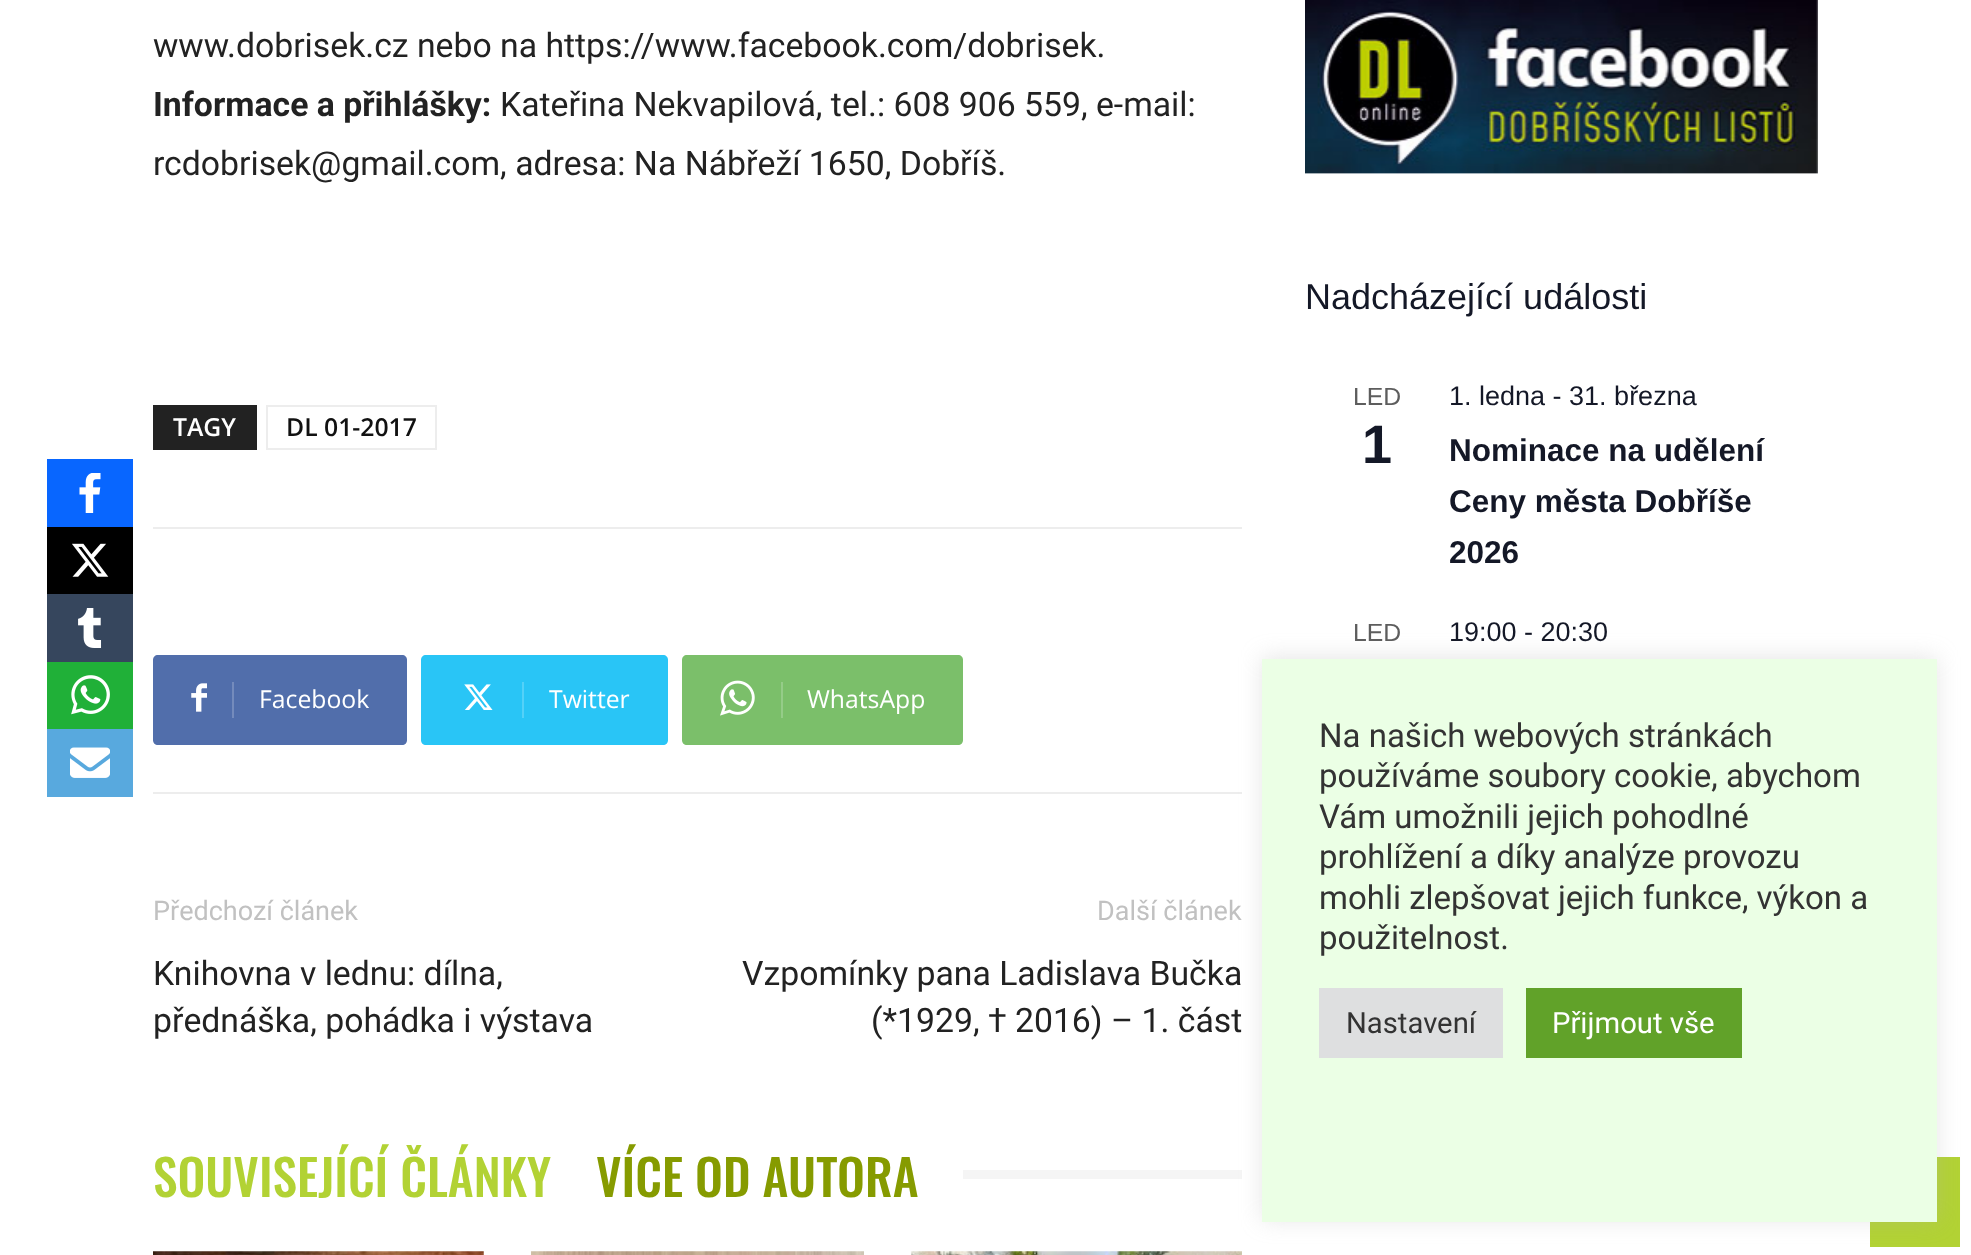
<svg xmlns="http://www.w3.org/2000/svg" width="1971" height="1255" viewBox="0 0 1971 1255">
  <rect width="100%" height="100%" fill="rgb(255,255,255)"/>
  <rect x="47" y="459" width="86" height="68" fill="rgb(8,102,255)"/>
  <image x="79" y="473" width="22" height="40" href="pic1.png"/>
  <rect x="47" y="527" width="86" height="67" fill="rgb(0,0,0)"/>
  <image x="72" y="543" width="37" height="34" href="pic2.png"/>
  <rect x="47" y="594" width="86" height="68" fill="rgb(54,70,93)"/>
  <image x="78" y="608" width="24" height="40" href="pic3.png"/>
  <rect x="47" y="662" width="86" height="67" fill="rgb(32,176,56)"/>
  <image x="71" y="675" width="39" height="40" href="pic4.png"/>
  <rect x="47" y="729" width="86" height="68" fill="rgb(88,169,222)"/>
  <image x="70" y="747" width="40" height="31" href="pic5.png"/>
  <text x="153" y="57" font-family="Roboto" font-size="33.75" fill="rgb(34,34,34)">www.dobrisek.cz nebo na https://www.facebook.com/dobrisek.</text>
  <text x="153" y="116" font-family="Roboto" font-size="33.75" font-weight="bold" fill="rgb(34,34,34)">Informace a přihlášky:</text>
  <g font-family="Roboto" font-size="33.75" fill="rgb(34,34,34)">
    <text x="500" y="116">Kateřina Nekvapilová, tel.: 608 906 559, e-mail:</text>
    <text x="153" y="175">rcdobrisek@gmail.com, adresa: Na Nábřeží 1650, Dobříš.</text>
  </g>
  <rect x="153" y="405" width="104" height="45" fill="rgb(34,34,34)"/>
  <text x="173" y="436" font-family="Open Sans" font-size="24.75" font-weight="600" fill="rgb(255,255,255)">TAGY</text>
  <rect x="267" y="406" width="169" height="43" fill="none" stroke="rgb(237,237,237)" stroke-width="2"/>
  <text x="286" y="436" font-family="Open Sans" font-size="24.75" font-weight="600" fill="rgb(17,17,17)">DL 01-2017</text>
  <rect x="153" y="527" width="1089" height="2" fill="rgb(237,237,237)"/>
  <rect x="153" y="792" width="1089" height="2" fill="rgb(237,237,237)"/>
  <path d="M232 655H402C405 655 407 657 407 660V740C407 743 405 745 402 745H232Z" fill="rgb(81,110,171)"/>
  <path d="M158 655H245V745H158C155 745 153 743 153 740V660C153 657 155 655 158 655Z" fill="rgb(81,110,171)"/>
  <image x="191" y="683" width="16" height="29" href="pic6.png"/>
  <rect x="232" y="682" width="2" height="36" fill="rgb(116,139,188)"/>
  <text x="259" y="708" font-family="Open Sans" font-size="24.75" fill="rgb(255,255,255)">Facebook</text>
  <path d="M522 655H663C666 655 668 657 668 660V740C668 743 666 745 663 745H522Z" fill="rgb(41,197,246)"/>
  <path d="M426 655H536V745H426C423 745 421 743 421 740V660C421 657 423 655 426 655Z" fill="rgb(41,197,246)"/>
  <image x="464" y="684" width="29" height="26" href="pic7.png"/>
  <rect x="522" y="682" width="2" height="36" fill="rgb(84,209,248)"/>
  <text x="549" y="708" font-family="Open Sans" font-size="24.75" fill="rgb(255,255,255)">Twitter</text>
  <path d="M781 655H958C961 655 963 657 963 660V740C963 743 961 745 958 745H781Z" fill="rgb(123,191,106)"/>
  <path d="M687 655H794V745H687C684 745 682 743 682 740V660C682 657 684 655 687 655Z" fill="rgb(123,191,106)"/>
  <image x="720" y="680" width="35" height="36" href="pic8.png"/>
  <rect x="781" y="682" width="2" height="36" fill="rgb(149,204,136)"/>
  <text x="807" y="708" font-family="Open Sans" font-size="24.75" fill="rgb(255,255,255)">WhatsApp</text>
  <text x="153" y="920" font-family="Roboto" font-size="27" fill="rgb(193,193,193)">Předchozí článek</text>
  <g font-family="Roboto" font-size="33.75" fill="rgb(34,34,34)">
    <text>
      <tspan x="153" y="985">Knihovna v lednu: dílna,</tspan>
      <tspan x="153" y="1032">přednáška, pohádka i výstava</tspan>
    </text>
  </g>
  <text x="1097" y="920" font-family="Roboto" font-size="27" fill="rgb(193,193,193)">Další článek</text>
  <g font-family="Roboto" font-size="33.75" fill="rgb(34,34,34)">
    <text x="742" y="985">Vzpomínky pana Ladislava Bučka</text>
    <text x="871" y="1032">(*1929, † 2016) – 1. část</text>
  </g>
  <text x="153" y="1197" font-family="Oswald" font-size="49.5" font-weight="500" fill="rgb(178,210,52)">SOUVISEJÍCÍ ČLÁNKY</text>
  <text x="596" y="1197" font-family="Oswald" font-size="49.5" font-weight="500" fill="rgb(134,155,0)">VÍCE OD AUTORA</text>
  <rect x="963" y="1170" width="279" height="9" fill="rgb(245,245,245)"/>
  <image x="153" y="1251" width="331" height="4" href="pic9.png"/>
  <image x="531" y="1251" width="333" height="4" href="pic10.png"/>
  <image x="911" y="1251" width="331" height="4" href="pic11.png"/>
  <image x="1305" y="0" width="513" height="174" href="pic12.png"/>
  <text x="1305" y="309" font-family="Liberation Sans" font-size="36" fill="rgb(20,24,39)">Nadcházející události</text>
  <text x="1353" y="405" font-family="Liberation Sans" font-size="24.75" fill="rgb(93,93,93)">LED</text>
  <text x="1362" y="463" font-family="Liberation Sans" font-size="54" font-weight="bold" fill="rgb(20,24,39)">1</text>
  <text x="1449" y="405" font-family="Liberation Sans" font-size="27" fill="rgb(20,24,39)">1. ledna - 31. března</text>
  <g font-family="Liberation Sans" font-size="31.5" font-weight="bold" fill="rgb(20,24,39)">
    <text>
      <tspan x="1449" y="461">Nominace na udělení</tspan>
      <tspan x="1449" y="512">Ceny města Dobříše</tspan>
      <tspan x="1449" y="563">2026</tspan>
    </text>
  </g>
  <text x="1353" y="641" font-family="Liberation Sans" font-size="24.75" fill="rgb(93,93,93)">LED</text>
  <text x="1449" y="641" font-family="Liberation Sans" font-size="27" fill="rgb(20,24,39)">19:00 - 20:30</text>
  <rect x="1870" y="1157" width="90" height="90" fill="rgb(178,210,52)"/>
  <rect x="1262" y="657" width="675" height="563" fill="rgba(172,171,171,0.3)" filter="blur(11px)"/>
  <rect x="1262" y="659" width="675" height="563" fill="rgb(235,255,229)"/>
  <g font-family="Roboto" font-size="33" fill="rgb(51,51,51)">
    <text>
      <tspan x="1319" y="747">Na našich webových stránkách</tspan>
      <tspan x="1319" y="787">používáme soubory cookie, abychom</tspan>
      <tspan x="1319" y="828">Vám umožnili jejich pohodlné</tspan>
      <tspan x="1319" y="868">prohlížení a díky analýze provozu</tspan>
      <tspan x="1319" y="909">mohli zlepšovat jejich funkce, výkon a</tspan>
      <tspan x="1319" y="949">použitelnost.</tspan>
    </text>
  </g>
  <rect x="1319" y="988" width="184" height="70" fill="rgb(222,223,224)"/>
  <text x="1346" y="1033" font-family="Roboto" font-size="29.25" fill="rgb(51,51,51)">Nastavení</text>
  <rect x="1526" y="988" width="216" height="70" fill="rgb(97,162,41)"/>
  <text x="1552" y="1033" font-family="Roboto" font-size="29.25" fill="rgb(255,255,255)">Přijmout vše</text>
</svg>
